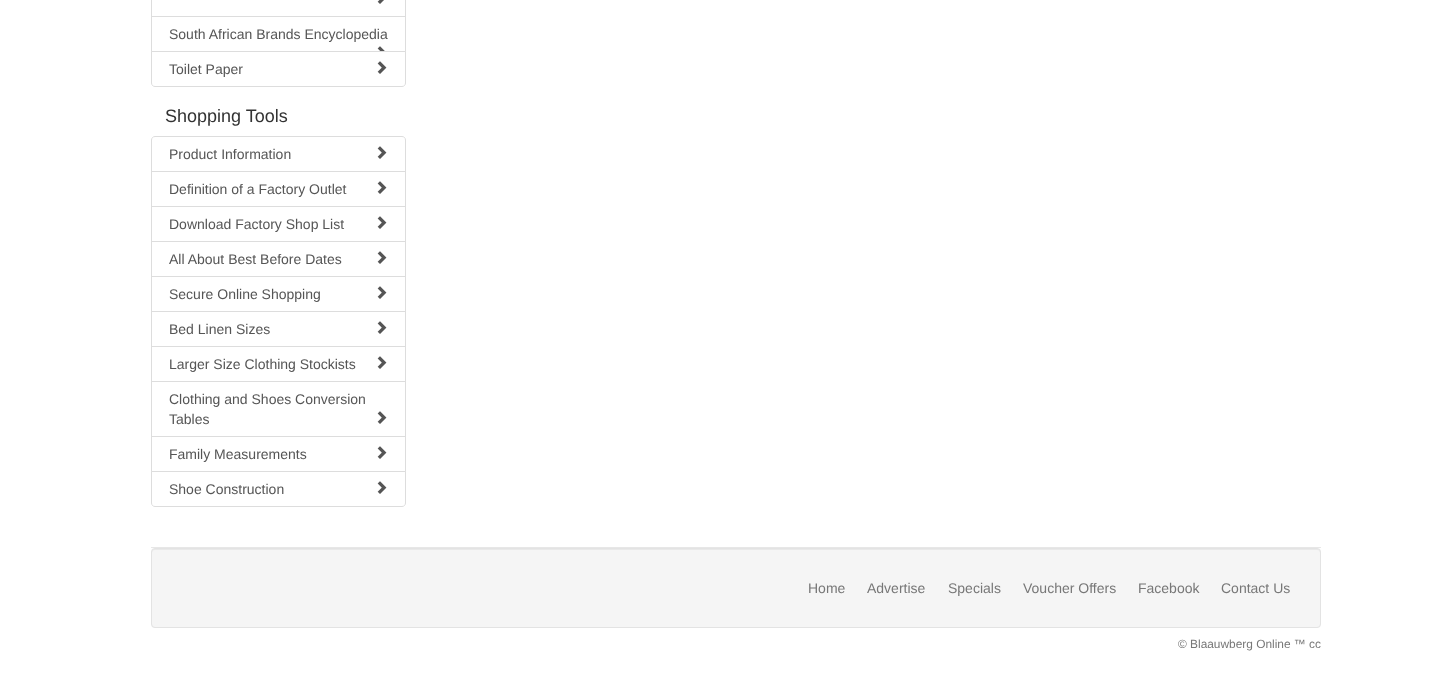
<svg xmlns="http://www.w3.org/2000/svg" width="1441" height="693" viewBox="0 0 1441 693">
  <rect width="100%" height="100%" fill="rgb(255,255,255)"/>
  <rect x="151.5" y="-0.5" width="254" height="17" fill="none" stroke="rgb(221,221,221)"/>
  <image x="377" y="0" width="7" height="4" href="pic1.png"/>
  <rect x="151.5" y="16.5" width="254" height="35" fill="none" stroke="rgb(221,221,221)"/>
  <text x="169" y="39" font-family="Liberation Sans" font-size="14" fill="rgb(85,85,85)">South African Brands Encyclopedia</text>
  <image x="377" y="46" width="8" height="5" href="pic2.png"/>
  <path d="M151.5 51.5H405.5V83C405.5 85 404 86.5 402 86.5H155C153 86.5 151.5 85 151.5 83Z" fill="rgb(255,255,255)" stroke="rgb(221,221,221)"/>
  <text x="169" y="74" font-family="Liberation Sans" font-size="14" fill="rgb(85,85,85)">Toilet Paper</text>
  <image x="377" y="61" width="10" height="13" href="pic3.png"/>
  <text x="165" y="122" font-family="Liberation Sans" font-size="18" fill="rgb(51,51,51)">Shopping Tools</text>
  <path d="M155 136.5H402C404 136.5 405.5 138 405.5 140V171.5H151.5V140C151.5 138 153 136.5 155 136.5Z" fill="none" stroke="rgb(221,221,221)"/>
  <text x="169" y="159" font-family="Liberation Sans" font-size="14" fill="rgb(85,85,85)">Product Information</text>
  <image x="377" y="146" width="10" height="13" href="pic3.png"/>
  <rect x="151.5" y="171.5" width="254" height="35" fill="none" stroke="rgb(221,221,221)"/>
  <text x="169" y="194" font-family="Liberation Sans" font-size="14" fill="rgb(85,85,85)">Definition of a Factory Outlet</text>
  <image x="377" y="181" width="10" height="13" href="pic3.png"/>
  <rect x="151.5" y="206.5" width="254" height="35" fill="none" stroke="rgb(221,221,221)"/>
  <text x="169" y="229" font-family="Liberation Sans" font-size="14" fill="rgb(85,85,85)">Download Factory Shop List</text>
  <image x="377" y="216" width="10" height="13" href="pic3.png"/>
  <rect x="151.5" y="241.5" width="254" height="35" fill="none" stroke="rgb(221,221,221)"/>
  <text x="169" y="264" font-family="Liberation Sans" font-size="14" fill="rgb(85,85,85)">All About Best Before Dates</text>
  <image x="377" y="251" width="10" height="13" href="pic3.png"/>
  <rect x="151.5" y="276.5" width="254" height="35" fill="none" stroke="rgb(221,221,221)"/>
  <text x="169" y="299" font-family="Liberation Sans" font-size="14" fill="rgb(85,85,85)">Secure Online Shopping</text>
  <image x="377" y="286" width="10" height="13" href="pic3.png"/>
  <rect x="151.5" y="311.5" width="254" height="35" fill="none" stroke="rgb(221,221,221)"/>
  <text x="169" y="334" font-family="Liberation Sans" font-size="14" fill="rgb(85,85,85)">Bed Linen Sizes</text>
  <image x="377" y="321" width="10" height="13" href="pic3.png"/>
  <rect x="151.5" y="346.5" width="254" height="35" fill="none" stroke="rgb(221,221,221)"/>
  <text x="169" y="369" font-family="Liberation Sans" font-size="14" fill="rgb(85,85,85)">Larger Size Clothing Stockists</text>
  <image x="377" y="356" width="10" height="13" href="pic3.png"/>
  <rect x="151.5" y="381.5" width="254" height="55" fill="none" stroke="rgb(221,221,221)"/>
  <g font-family="Liberation Sans" font-size="14" fill="rgb(85,85,85)">
    <text>
      <tspan x="169" y="404">Clothing and Shoes Conversion</tspan>
      <tspan x="169" y="424">Tables</tspan>
    </text>
  </g>
  <image x="377" y="411" width="10" height="13" href="pic3.png"/>
  <rect x="151.5" y="436.5" width="254" height="35" fill="none" stroke="rgb(221,221,221)"/>
  <text x="169" y="459" font-family="Liberation Sans" font-size="14" fill="rgb(85,85,85)">Family Measurements</text>
  <image x="377" y="446" width="10" height="13" href="pic3.png"/>
  <path d="M151.5 471.5H405.5V503C405.5 505 404 506.5 402 506.5H155C153 506.5 151.5 505 151.5 503Z" fill="rgb(255,255,255)" stroke="rgb(221,221,221)"/>
  <text x="169" y="494" font-family="Liberation Sans" font-size="14" fill="rgb(85,85,85)">Shoe Construction</text>
  <image x="377" y="481" width="10" height="13" href="pic3.png"/>
  <rect x="151" y="547" width="1170" height="1" fill="rgb(231,231,231)"/>
  <rect x="151" y="548" width="1170" height="80" rx="4" fill="rgb(245,245,245)"/>
  <path d="M155 550H1317C1319 550 1320 551 1320 553V552C1320 550 1319 549 1317 549H155C153 549 152 550 152 552V553C152 551 153 550 155 550Z" fill="rgb(233,233,233)"/>
  <rect x="151.5" y="548.5" width="1169" height="79" rx="3.5" fill="none" stroke="rgb(227,227,227)"/>
  <g font-family="Liberation Sans" font-size="14" fill="rgb(119,119,119)">
    <text x="808" y="593">Home</text>
    <text x="867" y="593">Advertise</text>
    <text x="948" y="593">Specials</text>
    <text x="1023" y="593">Voucher Offers</text>
    <text x="1138" y="593">Facebook</text>
    <text x="1221" y="593">Contact Us</text>
  </g>
  <text x="1178" y="648" font-family="Liberation Sans" font-size="11.9" fill="rgb(119,119,119)">© Blaauwberg Online ™ cc</text>
</svg>
